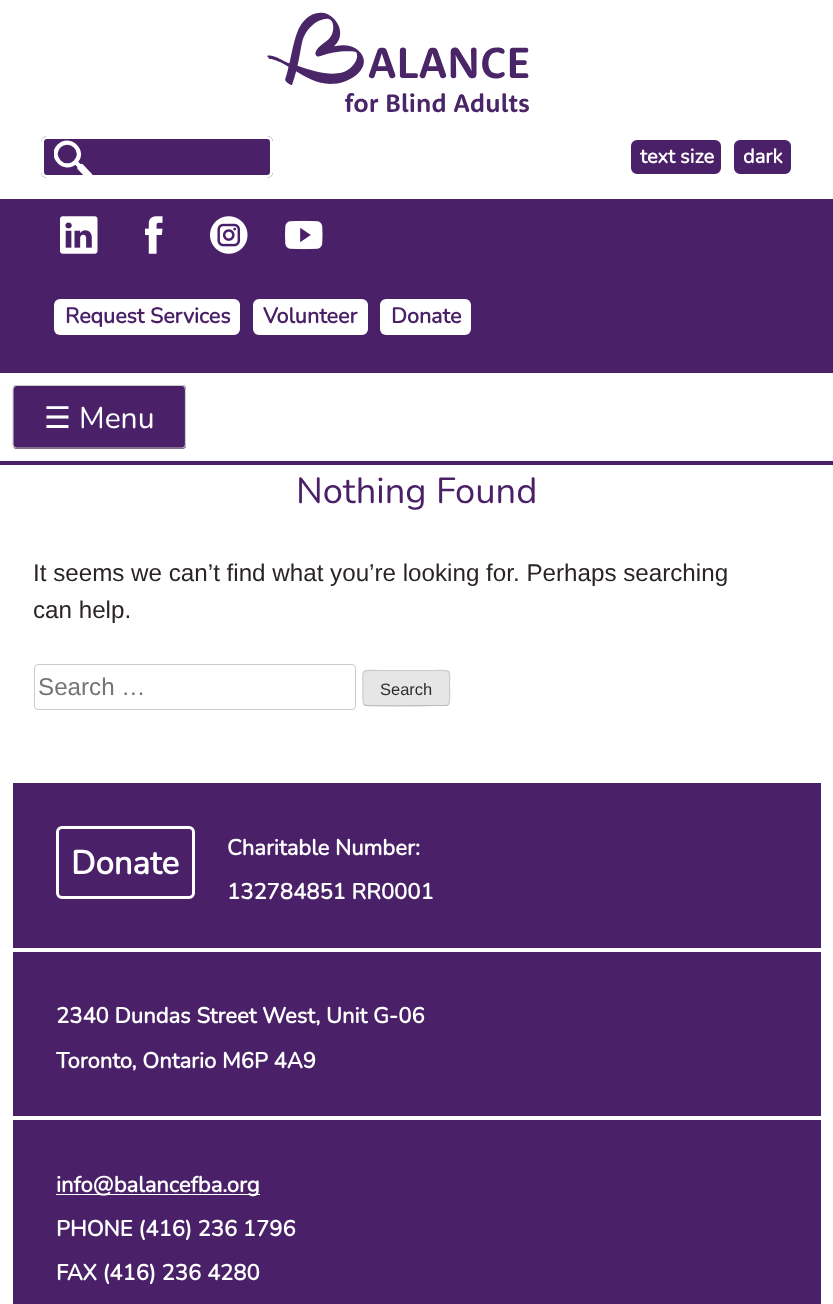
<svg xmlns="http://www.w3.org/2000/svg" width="833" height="1304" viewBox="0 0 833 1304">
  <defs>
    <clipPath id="clip1"><rect x="41" y="136" width="232" height="42" rx="6"/></clipPath>
    <clipPath id="clip2"><rect x="54" y="131" width="75" height="50"/></clipPath>
  </defs>
  <rect width="100%" height="100%" fill="rgb(255,255,255)"/>
  <image x="267" y="12" width="262" height="101" href="pic1.png"/>
  <rect x="41" y="136" width="232" height="42" rx="6" fill="rgb(74,33,105)"/>
  <g clip-path="url(#clip1)">
    <g clip-path="url(#clip2)">
      <path d="M75.5 162C86 151.5 70 135.5 59 146C48.5 156.5 64.5 172.5 75.5 162L88 175M81.5 166L89.5 174.5L87.5 176.5L79.5 168" fill="none" stroke="rgb(255,255,255)" stroke-width="4.2" stroke-linecap="round"/>
    </g>
  </g>
  <rect x="42.5" y="137.5" width="229" height="39" rx="4.5" fill="none" stroke="rgb(255,255,255)" stroke-width="3"/>
  <rect x="632.5" y="141.5" width="87" height="31" rx="4.5" fill="rgb(74,33,105)" stroke="rgb(74,33,105)" stroke-width="3"/>
  <text x="640" y="163" font-family="Nunito" font-size="20" font-weight="bold" fill="rgb(255,255,255)">text size</text>
  <rect x="735.5" y="141.5" width="54" height="31" rx="4.5" fill="rgb(74,33,105)" stroke="rgb(74,33,105)" stroke-width="3"/>
  <text x="743" y="163" font-family="Nunito" font-size="20" font-weight="bold" fill="rgb(255,255,255)">dark</text>
  <rect x="0" y="199" width="833" height="174" fill="rgb(74,33,105)"/>
  <image x="60" y="216" width="38" height="38" href="pic2.png"/>
  <image x="145" y="216" width="18" height="38" href="pic3.png"/>
  <image x="210" y="216" width="38" height="38" href="pic4.png"/>
  <image x="285" y="220" width="38" height="30" href="pic5.png"/>
  <rect x="54" y="299" width="186" height="36" rx="6" fill="rgb(255,255,255)"/>
  <text x="65" y="323" font-family="Nunito" font-size="21.5" font-weight="bold" fill="rgb(74,33,105)">Request Services</text>
  <rect x="253" y="299" width="115" height="36" rx="6" fill="rgb(255,255,255)"/>
  <text x="263" y="323" font-family="Nunito" font-size="21.5" font-weight="bold" fill="rgb(74,33,105)">Volunteer</text>
  <rect x="380" y="299" width="91" height="36" rx="6" fill="rgb(255,255,255)"/>
  <text x="391" y="323" font-family="Nunito" font-size="21.5" font-weight="bold" fill="rgb(74,33,105)">Donate</text>
  <rect x="0" y="461" width="833" height="4" fill="rgb(74,33,105)"/>
  <rect x="13" y="385" width="173" height="64" rx="4" fill="rgb(74,33,105)"/>
  <path d="M184.5 447L182.5 448H16L14 447" fill="none" stroke="rgb(187,187,187)" stroke-width="1.2"/>
  <path d="M14 447L13 445V389L14 386.5L16 385.5H182.5L184.5 386.5L185.5 389V445L184.5 447" fill="none" stroke="rgb(204,204,204)" stroke-width="1.2"/>
  <text x="44" y="428" font-family="DejaVu Sans" font-size="30" fill="rgb(255,255,255)">☰</text>
  <text x="79" y="428" font-family="Nunito" font-size="30" font-weight="200" fill="rgb(255,255,255)">Menu</text>
  <text x="296" y="503" font-family="Nunito" font-size="36.25" font-weight="200" fill="rgb(74,33,105)">Nothing Found</text>
  <g font-family="Liberation Sans" font-size="24.2" fill="rgb(42,36,38)">
    <text>
      <tspan x="33" y="581">It seems we can’t find what you’re looking for. Perhaps searching</tspan>
      <tspan x="33" y="618">can help.</tspan>
    </text>
  </g>
  <rect x="34.5" y="664.5" width="321" height="45" rx="3.5" fill="none" stroke="rgb(204,204,204)"/>
  <text x="38" y="695" font-family="Liberation Sans" font-size="24.2" fill="rgb(117,117,117)">Search …</text>
  <rect x="363" y="670" width="87" height="36" rx="4" fill="rgb(230,230,230)"/>
  <path d="M448.5 704.5L446 705.5H433C425.5 705.5 366.5 706.5 364.5 705L364 704.5" fill="none" stroke="rgb(187,187,187)" stroke-width="1.2"/>
  <path d="M364 704.5C362 702.5 363 691 363 688C363 668 359.5 670.5 379.5 670.5H433C453 670.5 449.5 668 449.5 688C449.5 691 450.5 702.5 448.5 704.5" fill="none" stroke="rgb(204,204,204)" stroke-width="1.2"/>
  <text x="380" y="695" font-family="Liberation Sans" font-size="16.5" fill="rgb(46,46,46)">Search</text>
  <rect x="13" y="783" width="808" height="521" fill="rgb(74,33,105)"/>
  <rect x="13" y="948" width="808" height="4" fill="rgb(255,255,255)"/>
  <rect x="57.5" y="827.5" width="136" height="70" rx="4.5" fill="none" stroke="rgb(255,255,255)" stroke-width="3"/>
  <text x="71" y="874" font-family="Nunito" font-size="33" font-weight="bold" fill="rgb(255,255,255)">Donate</text>
  <g font-family="Nunito" font-size="22" font-weight="bold" fill="rgb(255,255,255)">
    <text x="227" y="855">Charitable Number:</text>
    <text x="227" y="899">132784851 RR0001</text>
  </g>
  <rect x="13" y="1116" width="808" height="4" fill="rgb(255,255,255)"/>
  <g font-family="Nunito" font-size="22" font-weight="bold" fill="rgb(255,255,255)">
    <text x="56" y="1023">2340 Dundas Street West, Unit G-06</text>
    <text x="56" y="1068">Toronto, Ontario M6P 4A9</text>
  </g>
  <rect x="56" y="1194" width="204" height="1" fill="rgb(255,255,255)"/>
  <g font-family="Nunito" font-size="22" font-weight="bold" fill="rgb(255,255,255)">
    <text x="56" y="1192">info@balancefba.org</text>
    <text x="56" y="1236">PHONE (416) 236 1796</text>
    <text x="56" y="1280">FAX (416) 236 4280</text>
  </g>
</svg>
